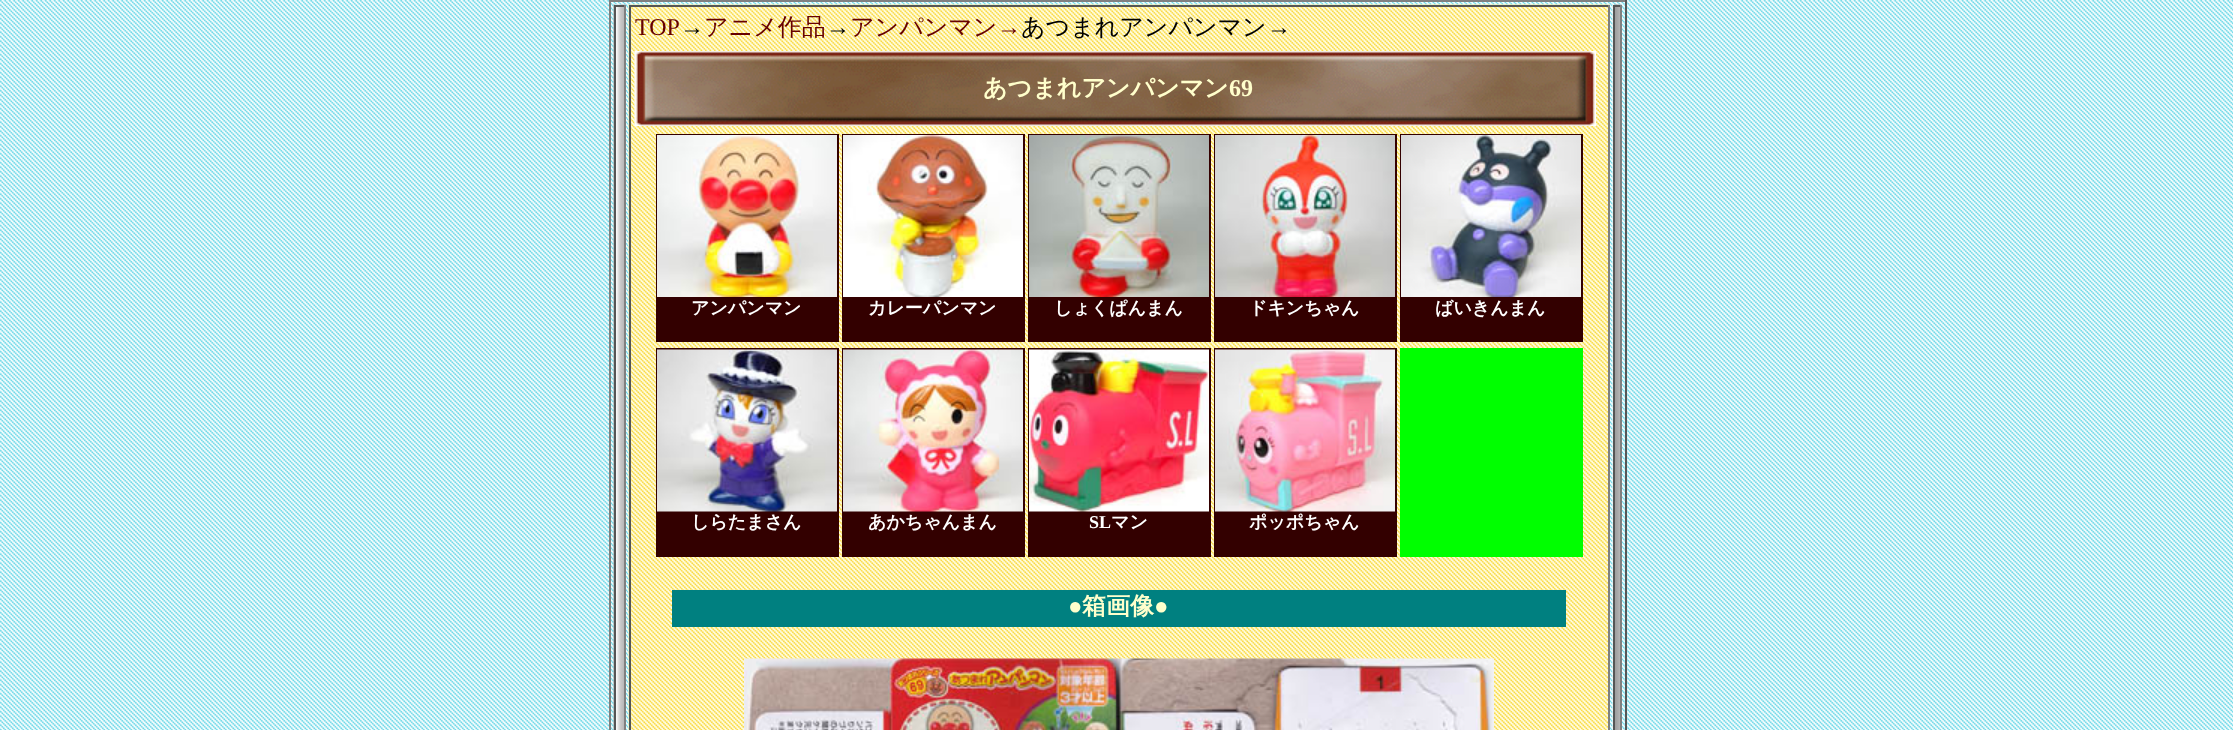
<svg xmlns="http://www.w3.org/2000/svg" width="2233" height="730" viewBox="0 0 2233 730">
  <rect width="100%" height="100%" fill="rgb(255,255,255)"/>
  <image x="0" y="0" width="2233" height="730" href="pic1.png"/>
  <rect x="609" y="0" width="1017" height="2" fill="rgb(128,128,128)"/>
  <rect x="1625" y="0" width="2" height="730" fill="rgb(85,85,85)"/>
  <rect x="609" y="0" width="2" height="730" fill="rgb(128,128,128)"/>
  <image x="613" y="4" width="13" height="726" href="pic2.png"/>
  <rect x="614" y="5" width="12" height="2" fill="rgb(85,85,85)"/>
  <rect x="624" y="5" width="2" height="725" fill="rgb(128,128,128)"/>
  <rect x="614" y="5" width="2" height="725" fill="rgb(85,85,85)"/>
  <image x="628" y="4" width="982" height="726" href="pic3.png"/>
  <rect x="629" y="5" width="981" height="2" fill="rgb(85,85,85)"/>
  <rect x="1608" y="5" width="2" height="725" fill="rgb(128,128,128)"/>
  <rect x="629" y="5" width="2" height="725" fill="rgb(85,85,85)"/>
  <text x="635" y="35" font-family="Liberation Serif" font-size="24" fill="rgb(102,0,0)">TOP</text>
  <text x="680" y="35" font-family="Liberation Serif" font-size="24" fill="rgb(0,0,0)">→</text>
  <text x="704" y="35" font-family="WenQuanYi Zen Hei" font-size="24" font-weight="500" fill="rgb(102,0,0)">アニメ作品</text>
  <text x="826" y="35" font-family="Liberation Serif" font-size="24" fill="rgb(0,0,0)">→</text>
  <text x="850" y="35" font-family="WenQuanYi Zen Hei" font-size="24" font-weight="500" fill="rgb(102,0,0)">アンパンマン</text>
  <text x="997" y="35" font-family="Liberation Serif" font-size="24" fill="rgb(102,0,0)">→</text>
  <text x="1021" y="35" font-family="WenQuanYi Zen Hei" font-size="24" font-weight="500" fill="rgb(0,0,0)">あつまれアンパンマン</text>
  <text x="1267" y="35" font-family="Liberation Serif" font-size="24" fill="rgb(0,0,0)">→</text>
  <image x="634" y="51" width="962" height="75" href="pic4.png"/>
  <text x="983" y="96" font-family="WenQuanYi Zen Hei" font-size="24" font-weight="bold" fill="rgb(255,255,204)">あつまれアンパンマン</text>
  <text x="1229" y="96" font-family="Liberation Serif" font-size="24" font-weight="bold" fill="rgb(255,255,204)">69</text>
  <rect x="656" y="134" width="183" height="208" fill="rgb(51,0,0)"/>
  <image x="657" y="135" width="180" height="162" href="pic5.png"/>
  <text x="691" y="314" font-family="WenQuanYi Zen Hei" font-size="18" font-weight="bold" fill="rgb(255,255,255)">アンパンマン</text>
  <rect x="842" y="134" width="183" height="208" fill="rgb(51,0,0)"/>
  <image x="843" y="135" width="180" height="162" href="pic6.png"/>
  <text x="868" y="314" font-family="WenQuanYi Zen Hei" font-size="18" font-weight="bold" fill="rgb(255,255,255)">カレーパンマン</text>
  <rect x="1028" y="134" width="183" height="208" fill="rgb(51,0,0)"/>
  <image x="1029" y="135" width="180" height="162" href="pic7.png"/>
  <text x="1054" y="314" font-family="WenQuanYi Zen Hei" font-size="18" font-weight="bold" fill="rgb(255,255,255)">しょくぱんまん</text>
  <rect x="1214" y="134" width="183" height="208" fill="rgb(51,0,0)"/>
  <image x="1215" y="135" width="180" height="162" href="pic8.png"/>
  <text x="1249" y="314" font-family="WenQuanYi Zen Hei" font-size="18" font-weight="bold" fill="rgb(255,255,255)">ドキンちゃん</text>
  <rect x="1400" y="134" width="183" height="208" fill="rgb(51,0,0)"/>
  <image x="1401" y="135" width="180" height="162" href="pic9.png"/>
  <text x="1435" y="314" font-family="WenQuanYi Zen Hei" font-size="18" font-weight="bold" fill="rgb(255,255,255)">ばいきんまん</text>
  <rect x="656" y="348" width="183" height="209" fill="rgb(51,0,0)"/>
  <image x="657" y="349" width="180" height="163" href="pic10.png"/>
  <text x="691" y="528" font-family="WenQuanYi Zen Hei" font-size="18" font-weight="bold" fill="rgb(255,255,255)">しらたまさん</text>
  <rect x="842" y="348" width="183" height="209" fill="rgb(51,0,0)"/>
  <image x="843" y="349" width="180" height="163" href="pic11.png"/>
  <text x="868" y="528" font-family="WenQuanYi Zen Hei" font-size="18" font-weight="bold" fill="rgb(255,255,255)">あかちゃんまん</text>
  <rect x="1028" y="348" width="183" height="209" fill="rgb(51,0,0)"/>
  <image x="1029" y="349" width="180" height="163" href="pic12.png"/>
  <text x="1089" y="528" font-family="Liberation Serif" font-size="18" font-weight="bold" fill="rgb(255,255,255)">SL</text>
  <text x="1111" y="528" font-family="WenQuanYi Zen Hei" font-size="18" font-weight="bold" fill="rgb(255,255,255)">マン</text>
  <rect x="1214" y="348" width="183" height="209" fill="rgb(51,0,0)"/>
  <image x="1215" y="349" width="180" height="163" href="pic13.png"/>
  <text x="1249" y="528" font-family="WenQuanYi Zen Hei" font-size="18" font-weight="bold" fill="rgb(255,255,255)">ポッポちゃん</text>
  <rect x="1400" y="348" width="183" height="209" fill="rgb(0,255,0)"/>
  <rect x="672" y="590" width="894" height="37" fill="rgb(0,128,128)"/>
  <text x="1068" y="614" font-family="Liberation Serif" font-size="24" font-weight="bold" fill="rgb(255,255,204)">●</text>
  <text x="1082" y="614" font-family="WenQuanYi Zen Hei" font-size="24" font-weight="bold" fill="rgb(255,255,204)">箱画像</text>
  <text x="1154" y="614" font-family="Liberation Serif" font-size="24" font-weight="bold" fill="rgb(255,255,204)">●</text>
  <image x="744" y="658" width="750" height="72" href="pic14.png"/>
  <image x="1612" y="4" width="10" height="726" href="pic15.png"/>
  <rect x="1613" y="5" width="9" height="2" fill="rgb(85,85,85)"/>
  <rect x="1620" y="5" width="2" height="725" fill="rgb(128,128,128)"/>
  <rect x="1613" y="5" width="2" height="725" fill="rgb(85,85,85)"/>
</svg>
